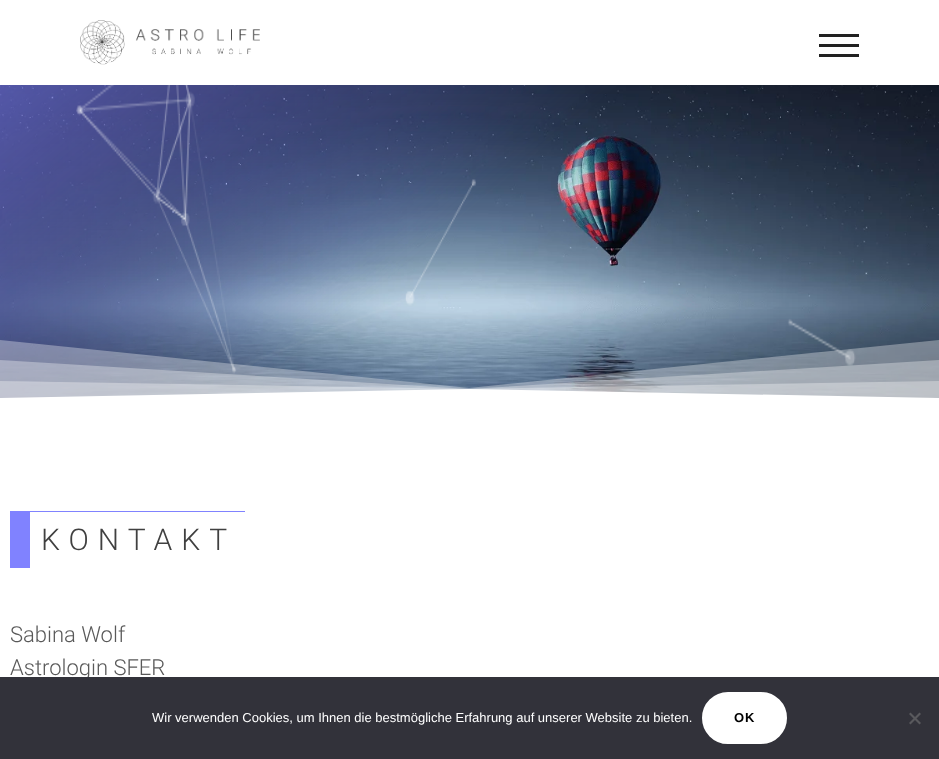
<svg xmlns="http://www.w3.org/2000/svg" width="939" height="759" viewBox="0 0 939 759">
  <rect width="100%" height="100%" fill="rgb(255,255,255)"/>
  <image x="80" y="20" width="180" height="45" href="pic1.png"/>
  <rect x="819" y="44" width="40" height="3" fill="rgb(33,33,33)"/>
  <rect x="819" y="34" width="40" height="3" fill="rgb(33,33,33)"/>
  <rect x="819" y="54" width="40" height="3" fill="rgb(33,33,33)"/>
  <image x="0" y="85" width="939" height="313" href="pic2.png"/>
  <path d="M939 402V340L469 388L-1 340V402Z" fill="rgba(255,255,255,0.33)"/>
  <path d="M939 402V360L469 389L-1 360V402Z" fill="rgba(255,255,255,0.33)"/>
  <image x="76" y="85" width="780" height="289" href="pic3.png"/>
  <path d="M939 402V381L469 389L-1 381V402Z" fill="rgba(255,255,255,0.33)"/>
  <path d="M939 402V398L469 389L-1 398V402Z" fill="rgb(255,255,255)"/>
  <rect x="30" y="511" width="215" height="1" fill="rgb(128,130,255)"/>
  <rect x="10" y="511" width="20" height="57" fill="rgb(128,130,255)"/>
  <text x="41" y="550" font-family="Roboto" font-size="30" font-weight="300" letter-spacing="9" fill="rgb(64,64,64)">KONTAKT</text>
  <g font-family="Roboto" font-size="22" font-weight="300" fill="rgb(89,89,89)">
    <text>
      <tspan x="10" y="642">Sabina Wolf</tspan>
      <tspan x="10" y="675">Astrologin SFER</tspan>
    </text>
  </g>
  <rect x="0" y="677" width="939" height="82" fill="rgb(50,50,58)"/>
  <text x="152" y="722" font-family="Liberation Sans" font-size="13" fill="rgb(255,255,255)">Wir verwenden Cookies, um Ihnen die bestmögliche Erfahrung auf unserer Website zu bieten.</text>
  <rect x="703" y="693" width="83" height="50" rx="25" fill="rgb(255,255,255)" stroke="rgb(255,255,255)" stroke-width="2"/>
  <text x="734" y="722" font-family="Liberation Sans" font-size="13" font-weight="bold" letter-spacing="1" fill="rgb(0,0,0)">OK</text>
  <path d="M919.5 712.5L921 714L910.5 724.5L909 723Z" fill="rgb(89,89,93)"/>
  <path d="M909 714L910.5 712.5L921 723L919.5 724.5Z" fill="rgb(89,89,93)"/>
</svg>
